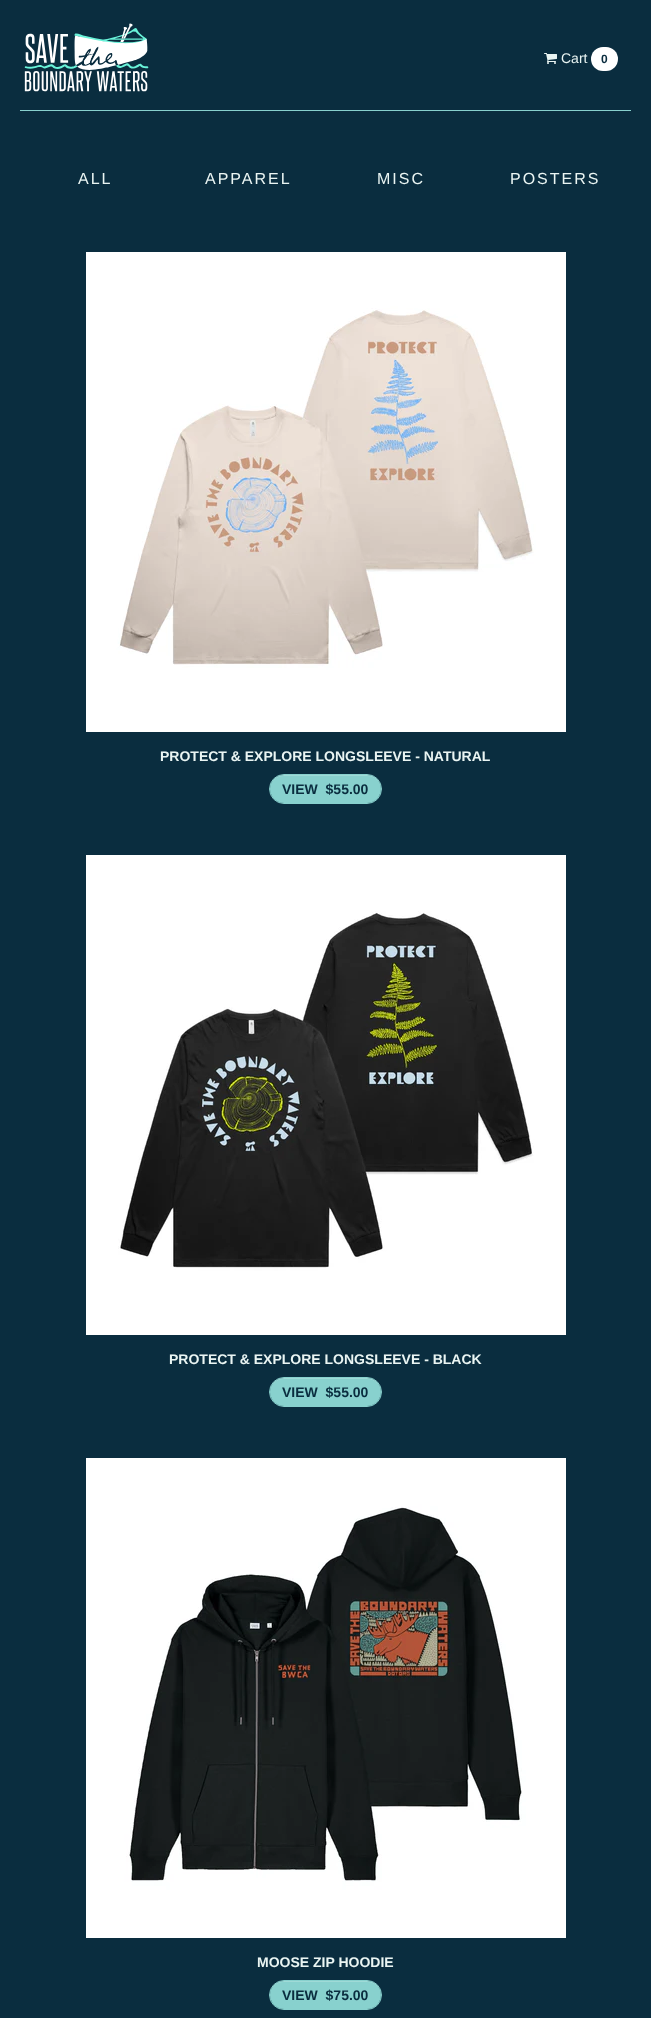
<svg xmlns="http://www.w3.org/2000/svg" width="651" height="2018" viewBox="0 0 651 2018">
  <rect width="100%" height="100%" fill="rgb(10,45,63)"/>
  <rect x="20" y="110" width="611" height="1" fill="rgb(136,209,206)"/>
  <image x="24" y="23" width="125" height="69" href="pic1.png"/>
  <image x="544" y="53" width="13" height="11" href="pic2.png"/>
  <text x="561" y="63" font-family="Liberation Sans" font-size="14" fill="rgb(234,245,243)">Cart</text>
  <rect x="591" y="47" width="27" height="24" rx="12" fill="rgb(255,255,255)"/>
  <text x="601" y="63" font-family="Liberation Sans" font-size="12" font-weight="bold" fill="rgb(10,45,63)">0</text>
  <g font-family="Liberation Sans" font-size="16" letter-spacing="2" fill="rgb(234,245,243)">
    <text x="78" y="184">ALL</text>
    <text x="205" y="184">APPAREL</text>
    <text x="377" y="184">MISC</text>
    <text x="510" y="184">POSTERS</text>
  </g>
  <image x="86" y="252" width="480" height="480" href="pic3.png"/>
  <text x="160" y="761" font-family="Liberation Sans" font-size="14" font-weight="bold" fill="rgb(234,245,243)">PROTECT &amp; EXPLORE LONGSLEEVE - NATURAL</text>
  <rect x="270" y="775" width="111" height="28" rx="14" fill="rgb(136,209,206)"/>
  <path d="M284 776H367C375 776 381 782 381 789C381 781 375 775 367 775H284C276 775 270 781 270 789C270 782 276 776 284 776Z" fill="rgba(255,255,255,0.2)"/>
  <rect x="269.5" y="774.5" width="112" height="29" rx="14.5" fill="none" stroke="rgb(136,209,206)"/>
  <text x="282" y="794" font-family="Liberation Sans" font-size="14" font-weight="bold" fill="rgb(10,45,63)" xml:space="preserve">VIEW  $55.00</text>
  <image x="86" y="855" width="480" height="480" href="pic4.png"/>
  <text x="169" y="1364" font-family="Liberation Sans" font-size="14" font-weight="bold" fill="rgb(234,245,243)">PROTECT &amp; EXPLORE LONGSLEEVE - BLACK</text>
  <rect x="270" y="1378" width="111" height="28" rx="14" fill="rgb(136,209,206)"/>
  <path d="M284 1379H367C375 1379 381 1385 381 1392C381 1384 375 1378 367 1378H284C276 1378 270 1384 270 1392C270 1385 276 1379 284 1379Z" fill="rgba(255,255,255,0.2)"/>
  <rect x="269.5" y="1377.5" width="112" height="29" rx="14.5" fill="none" stroke="rgb(136,209,206)"/>
  <text x="282" y="1397" font-family="Liberation Sans" font-size="14" font-weight="bold" fill="rgb(10,45,63)" xml:space="preserve">VIEW  $55.00</text>
  <image x="86" y="1458" width="480" height="480" href="pic5.png"/>
  <text x="257" y="1967" font-family="Liberation Sans" font-size="14" font-weight="bold" fill="rgb(234,245,243)">MOOSE ZIP HOODIE</text>
  <rect x="270" y="1981" width="111" height="28" rx="14" fill="rgb(136,209,206)"/>
  <path d="M284 1982H367C375 1982 381 1988 381 1995C381 1987 375 1981 367 1981H284C276 1981 270 1987 270 1995C270 1988 276 1982 284 1982Z" fill="rgba(255,255,255,0.2)"/>
  <rect x="269.5" y="1980.5" width="112" height="29" rx="14.5" fill="none" stroke="rgb(136,209,206)"/>
  <text x="282" y="2000" font-family="Liberation Sans" font-size="14" font-weight="bold" fill="rgb(10,45,63)" xml:space="preserve">VIEW  $75.00</text>
</svg>
